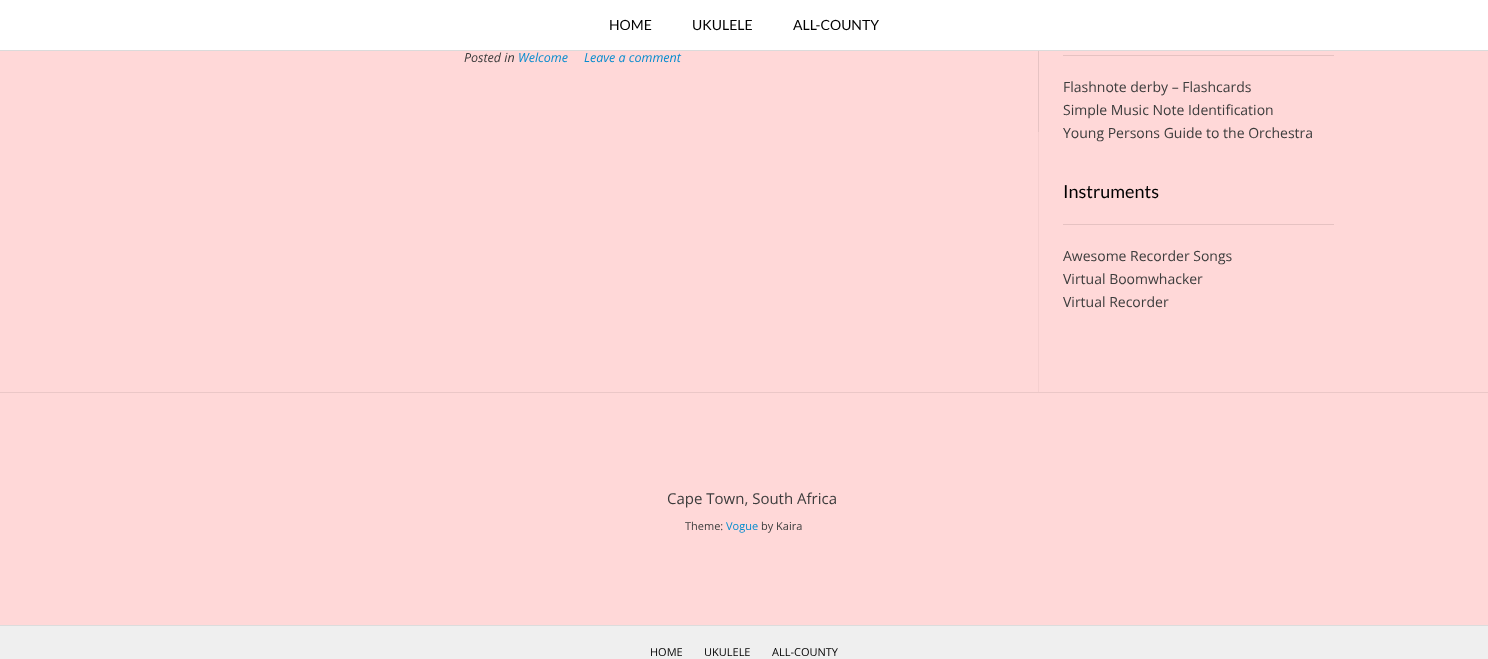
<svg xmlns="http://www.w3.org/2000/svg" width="1488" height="659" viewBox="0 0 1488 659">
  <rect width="100%" height="100%" fill="rgb(255,216,216)"/>
  <rect x="0" y="0" width="1488" height="50" fill="rgb(255,255,255)"/>
  <rect x="0" y="50" width="1488" height="1" fill="rgb(219,219,219)"/>
  <g font-family="Lato" font-size="14" fill="rgb(0,0,0)">
    <text x="609" y="30">HOME</text>
    <text x="692" y="30">UKULELE</text>
    <text x="793" y="30">ALL-COUNTY</text>
  </g>
  <rect x="1038" y="51" width="1" height="81" fill="rgb(230,195,195)"/>
  <text x="464" y="62" font-family="Open Sans" font-size="12.5" font-style="italic" fill="rgb(60,60,60)">Posted in</text>
  <g font-family="Open Sans" font-size="12.5" font-style="italic" fill="rgb(8,140,206)">
    <text x="518" y="62">Welcome</text>
    <text x="584" y="62">Leave a comment</text>
  </g>
  <rect x="1038" y="132" width="1" height="260" fill="rgb(245,207,207)"/>
  <rect x="1063" y="55" width="271" height="1" fill="rgb(230,194,194)"/>
  <g font-family="Open Sans" font-size="14" fill="rgb(60,60,60)">
    <text>
      <tspan x="1063" y="92">Flashnote derby – Flashcards</tspan>
      <tspan x="1063" y="115">Simple Music Note Identification</tspan>
      <tspan x="1063" y="138">Young Persons Guide to the Orchestra</tspan>
    </text>
  </g>
  <rect x="1063" y="224" width="271" height="1" fill="rgb(230,194,194)"/>
  <text x="1063" y="198" font-family="Lato" font-size="18" fill="rgb(0,0,0)">Instruments</text>
  <g font-family="Open Sans" font-size="14" fill="rgb(60,60,60)">
    <text>
      <tspan x="1063" y="261">Awesome Recorder Songs</tspan>
      <tspan x="1063" y="284">Virtual Boomwhacker</tspan>
      <tspan x="1063" y="307">Virtual Recorder</tspan>
    </text>
  </g>
  <rect x="0" y="392" width="1488" height="1" fill="rgb(235,199,199)"/>
  <text x="667" y="504" font-family="Open Sans" font-size="15" fill="rgb(60,60,60)">Cape Town, South Africa</text>
  <text x="685" y="530" font-family="Open Sans" font-size="11" fill="rgb(60,60,60)">Theme:</text>
  <text x="726" y="530" font-family="Open Sans" font-size="11" fill="rgb(8,140,206)">Vogue</text>
  <text x="761" y="530" font-family="Open Sans" font-size="11" fill="rgb(60,60,60)">by Kaira</text>
  <rect x="0" y="626" width="1488" height="33" fill="rgb(239,239,239)"/>
  <rect x="0" y="625" width="1488" height="1" fill="rgb(220,220,220)"/>
  <g font-family="Open Sans" font-size="11" fill="rgb(0,0,0)">
    <text x="650" y="656">HOME</text>
    <text x="704" y="656">UKULELE</text>
    <text x="772" y="656">ALL-COUNTY</text>
  </g>
</svg>
